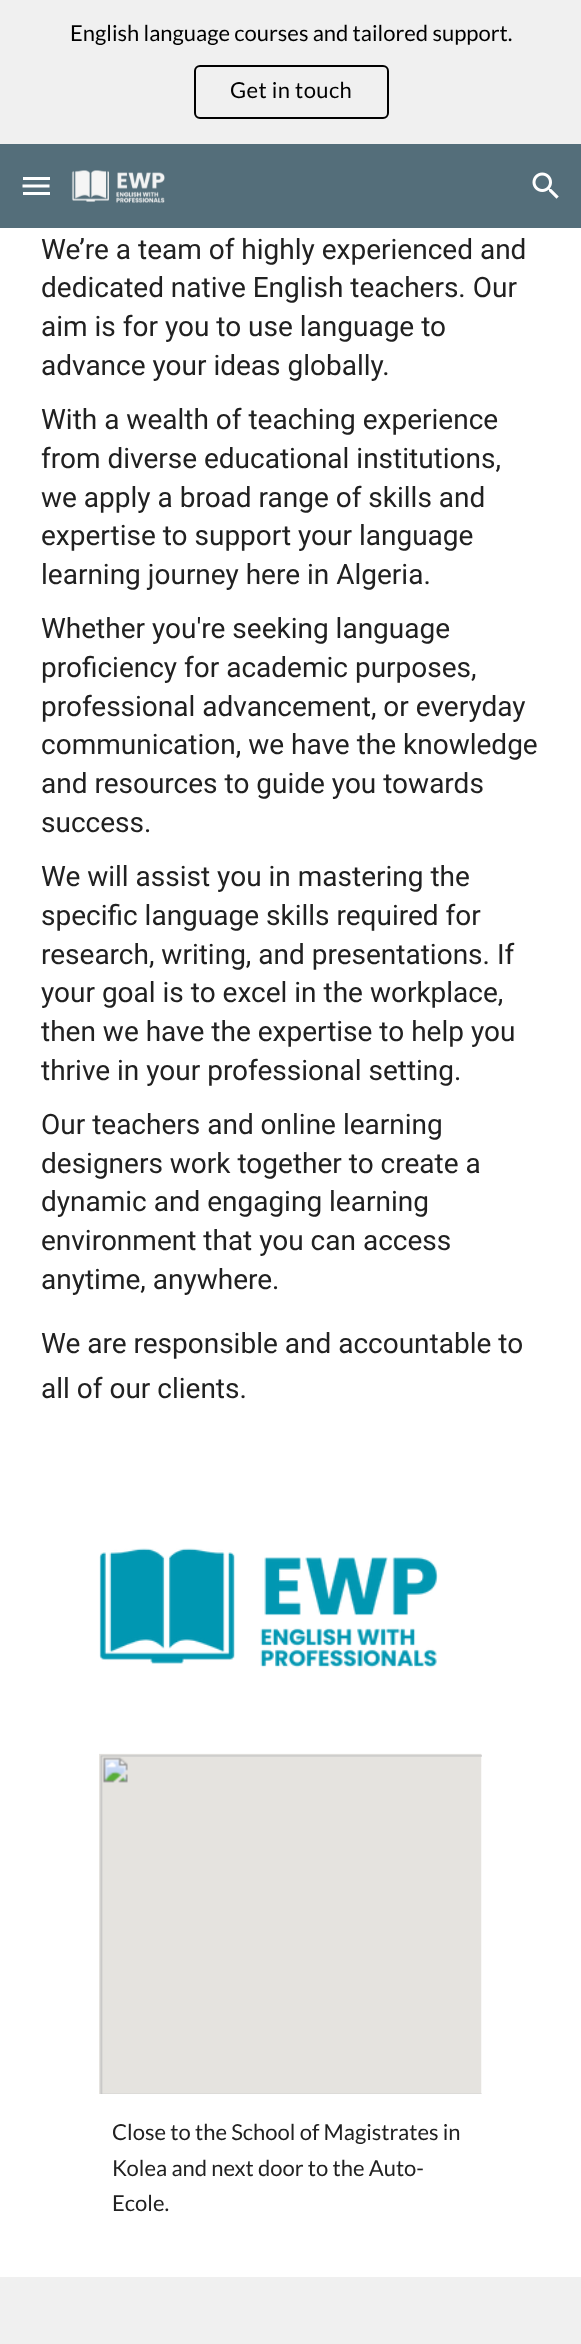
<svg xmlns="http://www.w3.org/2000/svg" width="581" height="2344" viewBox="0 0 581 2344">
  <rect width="100%" height="100%" fill="rgb(255,255,255)"/>
  <rect x="0" y="0" width="581" height="144" fill="rgb(240,240,240)"/>
  <text x="70" y="41" font-family="Lato" font-size="22" fill="rgb(0,0,0)">English language courses and tailored support.</text>
  <rect x="195" y="66" width="193" height="52" rx="5" fill="none" stroke="rgb(0,0,0)" stroke-width="2"/>
  <text x="230" y="98" font-family="Lato" font-size="22" letter-spacing="0.4" fill="rgb(0,0,0)">Get in touch</text>
  <rect x="0" y="144" width="581" height="84" fill="rgb(84,110,122)"/>
  <image x="71" y="170" width="94" height="33" href="pic1.png"/>
  <image x="532" y="172" width="27" height="27" href="pic2.png"/>
  <rect x="23" y="177" width="27" height="3" fill="rgb(255,255,255)"/>
  <path d="M22.5 186H49.5" fill="none" stroke="rgb(255,255,255)" stroke-width="3"/>
  <rect x="23" y="192" width="27" height="3" fill="rgb(255,255,255)"/>
  <g font-family="Roboto" font-size="28" fill="rgb(33,33,33)">
    <text>
      <tspan x="41" y="259">We’re a team of highly experienced and</tspan>
      <tspan x="41" y="297">dedicated native English teachers. Our</tspan>
      <tspan x="41" y="336">aim is for you to use language to</tspan>
      <tspan x="41" y="375">advance your ideas globally.</tspan>
      <tspan x="41" y="429">With a wealth of teaching experience</tspan>
      <tspan x="41" y="468">from diverse educational institutions,</tspan>
      <tspan x="41" y="507">we apply a broad range of skills and</tspan>
      <tspan x="41" y="545">expertise to support your language</tspan>
      <tspan x="41" y="584">learning journey here in Algeria.</tspan>
      <tspan x="41" y="638">Whether you're seeking language</tspan>
      <tspan x="41" y="677">proficiency for academic purposes,</tspan>
      <tspan x="41" y="716">professional advancement, or everyday</tspan>
      <tspan x="41" y="754">communication, we have the knowledge</tspan>
      <tspan x="41" y="793">and resources to guide you towards</tspan>
      <tspan x="41" y="832">success.</tspan>
      <tspan x="41" y="886">We will assist you in mastering the</tspan>
      <tspan x="41" y="925">specific language skills required for</tspan>
      <tspan x="41" y="964">research, writing, and presentations. If</tspan>
      <tspan x="41" y="1002">your goal is to excel in the workplace,</tspan>
      <tspan x="41" y="1041">then we have the expertise to help you</tspan>
      <tspan x="41" y="1080">thrive in your professional setting.</tspan>
      <tspan x="41" y="1134">Our teachers and online learning</tspan>
      <tspan x="41" y="1173">designers work together to create a</tspan>
      <tspan x="41" y="1211">dynamic and engaging learning</tspan>
      <tspan x="41" y="1250">environment that you can access</tspan>
      <tspan x="41" y="1289">anytime, anywhere.</tspan>
    </text>
    <text>
      <tspan x="41" y="1353">We are responsible and accountable to</tspan>
      <tspan x="41" y="1398">all of our clients.</tspan>
    </text>
  </g>
  <image x="99" y="1548" width="339" height="120" href="pic3.png"/>
  <image x="99" y="1753" width="383" height="341" href="pic4.png"/>
  <g font-family="Lato" font-size="22" fill="rgb(33,33,33)">
    <text>
      <tspan x="112" y="2140">Close to the School of Magistrates in</tspan>
      <tspan x="112" y="2176">Kolea and next door to the Auto-</tspan>
      <tspan x="112" y="2211">Ecole.</tspan>
    </text>
  </g>
  <rect x="0" y="2277" width="581" height="67" fill="rgb(240,240,240)"/>
</svg>
